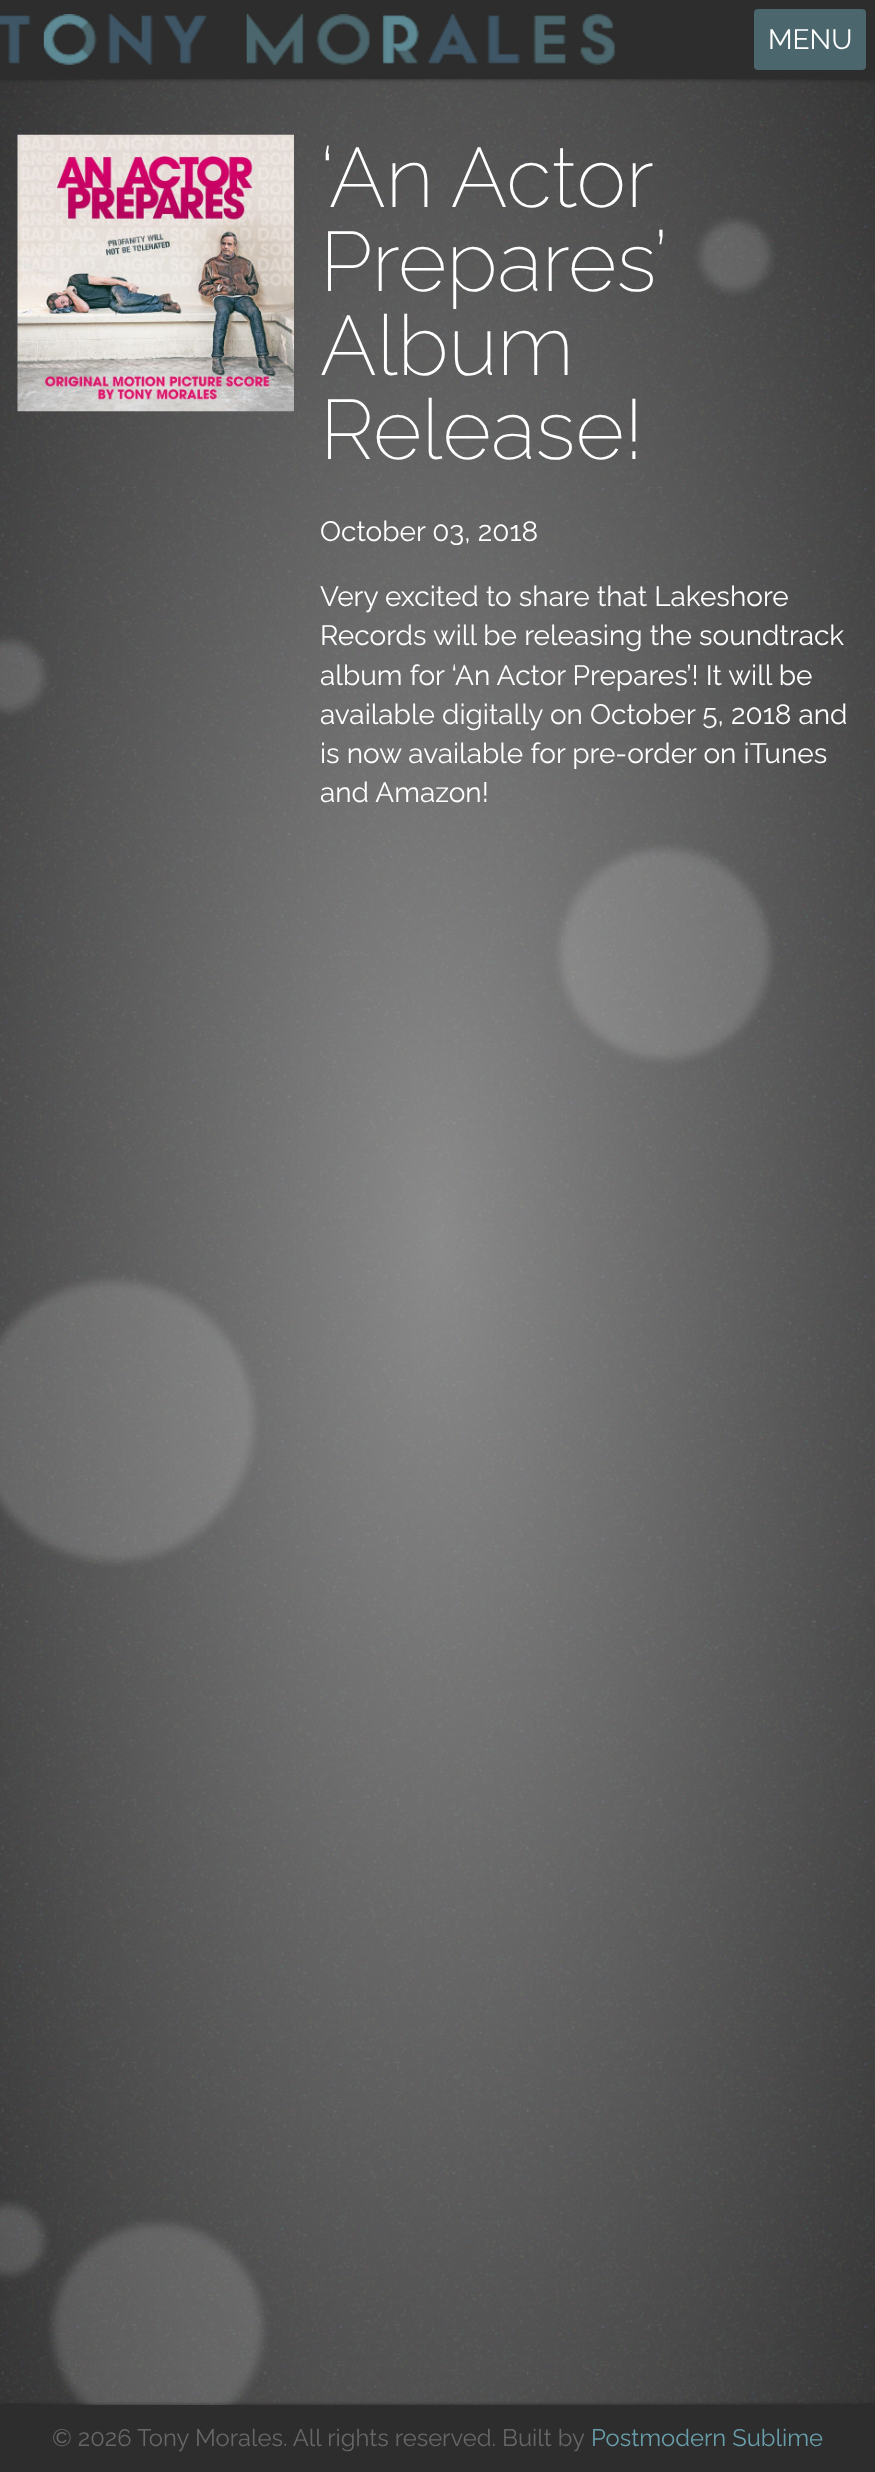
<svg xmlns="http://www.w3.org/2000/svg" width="875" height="2472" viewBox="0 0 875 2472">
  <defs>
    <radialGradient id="g1" gradientUnits="userSpaceOnUse" cx="0" cy="0" r="1" gradientTransform="matrix(619 0 0 1748 438 1236)"><stop offset="0" stop-color="rgb(255,255,255)" stop-opacity="0.43"/><stop offset="1" stop-color="rgb(255,255,255)" stop-opacity="0"/></radialGradient>
  </defs>
  <rect width="100%" height="100%" fill="rgb(51,51,51)"/>
  <image x="0" y="79" width="875" height="2326" href="pic1.png"/>
  <rect x="0" y="79" width="875" height="2326" fill="url(#g1)"/>
  <rect x="0" y="0" width="875" height="79" fill="rgba(0,0,0,0.5)" filter="blur(2px)"/>
  <rect x="0" y="0" width="875" height="79" fill="rgb(45,45,45)"/>
  <image x="43" y="14" width="54" height="51" href="pic2.png"/>
  <image x="0" y="15" width="31" height="49" href="pic3.png"/>
  <image x="44" y="14" width="45" height="51" href="pic4.png"/>
  <image x="108" y="14" width="45" height="51" href="pic5.png"/>
  <image x="164" y="15" width="43" height="49" href="pic6.png"/>
  <image x="246" y="14" width="58" height="51" href="pic7.png"/>
  <image x="316" y="14" width="54" height="51" href="pic8.png"/>
  <image x="382" y="15" width="37" height="49" href="pic9.png"/>
  <image x="428" y="14" width="50" height="50" href="pic10.png"/>
  <image x="580" y="14" width="35" height="51" href="pic11.png"/>
  <image x="383" y="15" width="36" height="49" href="pic12.png"/>
  <image x="487" y="15" width="33" height="49" href="pic13.png"/>
  <image x="533" y="15" width="33" height="49" href="pic14.png"/>
  <rect x="754" y="9" width="112" height="61" rx="4" fill="rgb(75,102,108)"/>
  <text x="768" y="49" font-family="Raleway" font-size="28" fill="rgb(255,255,255)">MENU</text>
  <image x="17" y="134" width="277" height="278" href="pic15.png"/>
  <g font-family="Raleway" font-size="84" font-weight="200" fill="rgb(255,255,255)">
    <text>
      <tspan x="320" y="207" word-spacing="-2">‘An Actor</tspan>
      <tspan x="320" y="291">Prepares’</tspan>
      <tspan x="320" y="375">Album</tspan>
      <tspan x="320" y="459">Release!</tspan>
    </text>
  </g>
  <g font-family="Raleway" font-size="28" fill="rgb(255,255,255)">
    <text x="320" y="541">October 03, 2018</text>
    <text>
      <tspan x="320" y="606">Very excited to share that Lakeshore</tspan>
      <tspan x="320" y="645">Records will be releasing the soundtrack</tspan>
      <tspan x="320" y="685">album for ‘An Actor Prepares’! It will be</tspan>
      <tspan x="320" y="724">available</tspan>
    </text>
    <text x="442" y="724">digitally on October 5, 2018 and</text>
    <text>
      <tspan x="320" y="763">is now available for pre-order on iTunes</tspan>
      <tspan x="320" y="802">and Amazon!</tspan>
    </text>
  </g>
  <rect x="700" y="221" width="70" height="70" rx="35" fill="rgba(255,255,255,0.15)" filter="blur(5px)"/>
  <rect x="-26" y="641" width="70" height="70" rx="35" fill="rgba(255,255,255,0.15)" filter="blur(5px)"/>
  <rect x="560" y="849" width="210" height="210" rx="105" fill="rgba(255,255,255,0.15)" filter="blur(5px)"/>
  <rect x="-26" y="1281" width="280" height="280" rx="140" fill="rgba(255,255,255,0.15)" filter="blur(5px)"/>
  <rect x="-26" y="2205" width="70" height="70" rx="35" fill="rgba(255,255,255,0.15)" filter="blur(5px)"/>
  <rect x="53" y="2224" width="210" height="210" rx="105" fill="rgba(255,255,255,0.15)" filter="blur(5px)"/>
  <rect x="0" y="2405" width="875" height="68" fill="rgba(0,0,0,0.5)" filter="blur(2px)"/>
  <rect x="0" y="2405" width="875" height="67" fill="rgb(45,45,45)"/>
  <text x="52" y="2446" font-family="Raleway" font-size="23.8" fill="rgb(102,102,102)">© 2026 Tony Morales. All rights reserved. Built by</text>
  <text x="591" y="2446" font-family="Raleway" font-size="23.8" fill="rgb(104,157,170)">Postmodern Sublime</text>
</svg>
